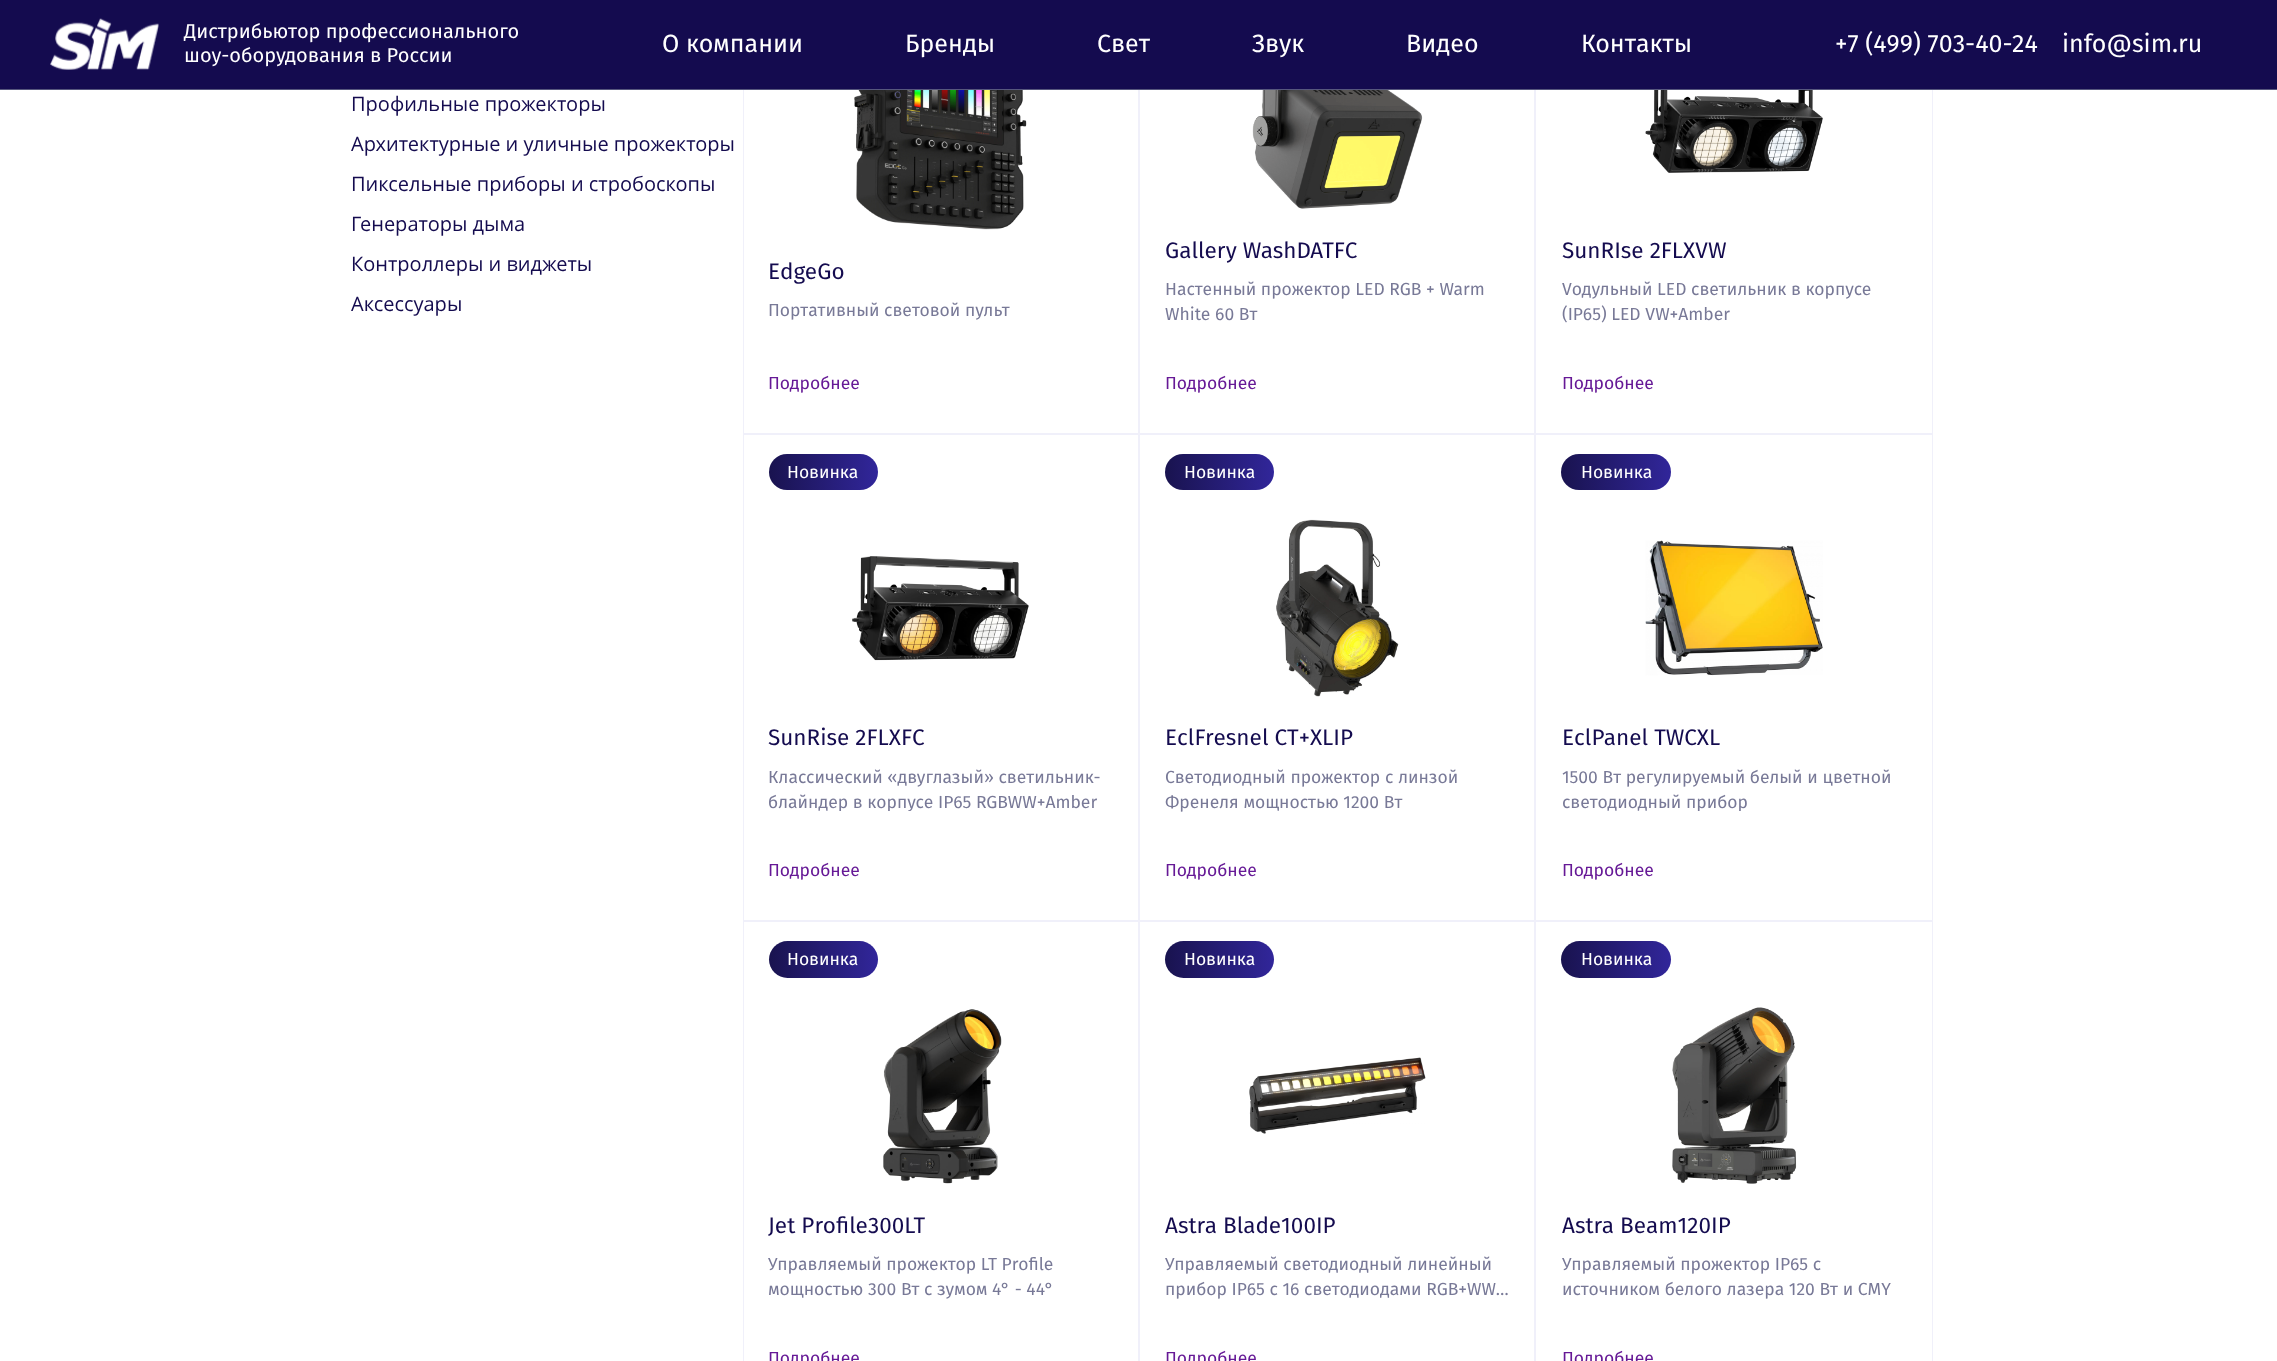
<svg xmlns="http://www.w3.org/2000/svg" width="2277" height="1361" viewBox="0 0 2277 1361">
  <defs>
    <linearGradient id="g1" gradientUnits="userSpaceOnUse" x1="769" y1="472" x2="878" y2="472"><stop offset="0" stop-color="rgb(25,19,79)"/><stop offset="1" stop-color="rgb(49,38,154)"/></linearGradient>
    <clipPath id="clip1"><rect x="769" y="765" width="344" height="46"/></clipPath>
    <linearGradient id="g2" gradientUnits="userSpaceOnUse" x1="1165" y1="472" x2="1274" y2="472"><stop offset="0" stop-color="rgb(25,19,79)"/><stop offset="1" stop-color="rgb(49,38,154)"/></linearGradient>
    <linearGradient id="g3" gradientUnits="userSpaceOnUse" x1="1561" y1="472" x2="1671" y2="472"><stop offset="0" stop-color="rgb(25,19,79)"/><stop offset="1" stop-color="rgb(49,38,154)"/></linearGradient>
    <clipPath id="clip2"><rect x="1561" y="765" width="345" height="46"/></clipPath>
    <linearGradient id="g4" gradientUnits="userSpaceOnUse" x1="769" y1="959" x2="878" y2="959"><stop offset="0" stop-color="rgb(25,19,79)"/><stop offset="1" stop-color="rgb(49,38,154)"/></linearGradient>
    <linearGradient id="g5" gradientUnits="userSpaceOnUse" x1="1165" y1="959" x2="1274" y2="959"><stop offset="0" stop-color="rgb(25,19,79)"/><stop offset="1" stop-color="rgb(49,38,154)"/></linearGradient>
    <linearGradient id="g6" gradientUnits="userSpaceOnUse" x1="1561" y1="959" x2="1671" y2="959"><stop offset="0" stop-color="rgb(25,19,79)"/><stop offset="1" stop-color="rgb(49,38,154)"/></linearGradient>
  </defs>
  <rect width="100%" height="100%" fill="rgb(255,255,255)"/>
  <rect x="743.5" y="-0.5" width="395" height="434" fill="none" stroke="rgb(240,240,250)"/>
  <rect x="1139.5" y="-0.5" width="395" height="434" fill="none" stroke="rgb(240,240,250)"/>
  <rect x="1535.5" y="-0.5" width="397" height="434" fill="none" stroke="rgb(240,240,250)"/>
  <rect x="0" y="0" width="2277" height="89" fill="rgb(20,11,79)"/>
  <rect x="0" y="89" width="2277" height="1" fill="rgb(86,87,125)"/>
  <image x="50" y="18" width="109" height="52" href="pic1.png"/>
  <g font-family="Fira Sans" font-size="20" fill="rgb(255,255,255)">
    <text>
      <tspan x="184" y="38">Дистрибьютор профессионального</tspan>
      <tspan x="184" y="62">шоу-оборудования в России</tspan>
    </text>
  </g>
  <g font-family="Fira Sans" font-size="25" fill="rgb(255,255,255)">
    <text x="662" y="52">О компании</text>
    <text x="905" y="52">Бренды</text>
    <text x="1097" y="52">Свет</text>
    <text x="1252" y="52">Звук</text>
    <text x="1406" y="52">Видео</text>
    <text x="1581" y="52">Контакты</text>
    <text x="1835" y="52">+7 (499) 703-40-24</text>
    <text x="2062" y="52">info@sim.ru</text>
  </g>
  <g font-family="Open Sans" font-size="20" fill="rgb(20,11,79)">
    <text x="351" y="111">Профильные прожекторы</text>
    <text x="351" y="151">Архитектурные и уличные прожекторы</text>
    <text x="351" y="191">Пиксельные приборы и стробоскопы</text>
    <text x="351" y="231">Генераторы дыма</text>
    <text x="351" y="271">Контроллеры и виджеты</text>
    <text x="351" y="311">Аксессуары</text>
  </g>
  <image x="854" y="90" width="173" height="140" href="pic2.png"/>
  <text x="768" y="279" font-family="Fira Sans" font-size="22.5" fill="rgb(20,11,79)">EdgeGo</text>
  <text x="768" y="316" font-family="Fira Sans" font-size="17.5" fill="rgb(120,121,151)">Портативный световой пульт</text>
  <text x="768" y="389" font-family="Fira Sans" font-size="17.5" fill="rgb(102,25,150)">Подробнее</text>
  <image x="1252" y="90" width="171" height="119" href="pic3.png"/>
  <text x="1165" y="258" font-family="Fira Sans" font-size="22.5" fill="rgb(20,11,79)">Gallery WashDATFC</text>
  <g font-family="Fira Sans" font-size="17.5" fill="rgb(120,121,151)">
    <text>
      <tspan x="1165" y="295">Настенный прожектор LED RGB + Warm</tspan>
      <tspan x="1165" y="320">White 60 Вт</tspan>
    </text>
  </g>
  <text x="1165" y="389" font-family="Fira Sans" font-size="17.5" fill="rgb(102,25,150)">Подробнее</text>
  <image x="1645" y="90" width="178" height="83" href="pic4.png"/>
  <text x="1562" y="258" font-family="Fira Sans" font-size="22.5" fill="rgb(20,11,79)">SunRIse 2FLXVW</text>
  <g font-family="Fira Sans" font-size="17.5" fill="rgb(120,121,151)">
    <text>
      <tspan x="1562" y="295">Vодульный LED светильник в корпусе</tspan>
      <tspan x="1562" y="320">(IP65) LED VW+Amber</tspan>
    </text>
  </g>
  <text x="1562" y="389" font-family="Fira Sans" font-size="17.5" fill="rgb(102,25,150)">Подробнее</text>
  <rect x="743.5" y="434.5" width="395" height="486" fill="none" stroke="rgb(240,240,250)"/>
  <rect x="769" y="454" width="109" height="36" rx="18" fill="url(#g1)"/>
  <text x="787" y="478" font-family="Fira Sans" font-size="17.5" fill="rgb(255,255,255)">Новинка</text>
  <image x="852" y="556" width="177" height="105" href="pic5.png"/>
  <text x="768" y="745" font-family="Fira Sans" font-size="22.5" fill="rgb(20,11,79)">SunRise 2FLXFC</text>
  <text x="768" y="783" font-family="Fira Sans" font-size="17.5" fill="rgb(120,121,151)">Классический «двуглазый» светильник-</text>
  <g clip-path="url(#clip1)">
    <text x="768" y="808" font-family="Fira Sans" font-size="17.5" fill="rgb(120,121,151)">блайндер в корпусе IP65 RGBWW+Amber</text>
  </g>
  <text x="768" y="876" font-family="Fira Sans" font-size="17.5" fill="rgb(102,25,150)">Подробнее</text>
  <rect x="1139.5" y="434.5" width="395" height="486" fill="none" stroke="rgb(240,240,250)"/>
  <rect x="1165" y="454" width="109" height="36" rx="18" fill="url(#g2)"/>
  <text x="1184" y="478" font-family="Fira Sans" font-size="17.5" fill="rgb(255,255,255)">Новинка</text>
  <image x="1276" y="519" width="123" height="178" href="pic6.png"/>
  <text x="1165" y="745" font-family="Fira Sans" font-size="22.5" fill="rgb(20,11,79)">EclFresnel CT+XLIP</text>
  <g font-family="Fira Sans" font-size="17.5" fill="rgb(120,121,151)">
    <text>
      <tspan x="1165" y="783">Светодиодный прожектор с линзой</tspan>
      <tspan x="1165" y="808">Френеля мощностью 1200 Вт</tspan>
    </text>
  </g>
  <text x="1165" y="876" font-family="Fira Sans" font-size="17.5" fill="rgb(102,25,150)">Подробнее</text>
  <rect x="1535.5" y="434.5" width="397" height="486" fill="none" stroke="rgb(240,240,250)"/>
  <rect x="1561" y="454" width="110" height="36" rx="18" fill="url(#g3)"/>
  <text x="1581" y="478" font-family="Fira Sans" font-size="17.5" fill="rgb(255,255,255)">Новинка</text>
  <image x="1645" y="540" width="178" height="136" href="pic7.png"/>
  <text x="1562" y="745" font-family="Fira Sans" font-size="22.5" fill="rgb(20,11,79)">EclPanel TWCXL</text>
  <text x="1562" y="783" font-family="Fira Sans" font-size="17.5" fill="rgb(120,121,151)">1500 Вт регулируемый белый и цветной</text>
  <g clip-path="url(#clip2)">
    <text x="1562" y="808" font-family="Fira Sans" font-size="17.5" fill="rgb(120,121,151)">светодиодный прибор</text>
  </g>
  <text x="1562" y="876" font-family="Fira Sans" font-size="17.5" fill="rgb(102,25,150)">Подробнее</text>
  <rect x="743.5" y="921.5" width="395" height="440" fill="none" stroke="rgb(240,240,250)"/>
  <rect x="769" y="941" width="109" height="37" rx="18.5" fill="url(#g4)"/>
  <text x="787" y="965" font-family="Fira Sans" font-size="17.5" fill="rgb(255,255,255)">Новинка</text>
  <image x="883" y="1009" width="119" height="175" href="pic8.png"/>
  <text x="768" y="1233" font-family="Fira Sans" font-size="22.5" fill="rgb(20,11,79)">Jet Profile300LT</text>
  <g font-family="Fira Sans" font-size="17.5" fill="rgb(120,121,151)">
    <text>
      <tspan x="768" y="1270">Управляемый прожектор LT Profile</tspan>
      <tspan x="768" y="1295">мощностью 300 Вт с зумом 4° - 44°</tspan>
    </text>
  </g>
  <text x="768" y="1364" font-family="Fira Sans" font-size="17.5" fill="rgb(102,25,150)">Подробнее</text>
  <rect x="1139.5" y="921.5" width="395" height="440" fill="none" stroke="rgb(240,240,250)"/>
  <rect x="1165" y="941" width="109" height="37" rx="18.5" fill="url(#g5)"/>
  <text x="1184" y="965" font-family="Fira Sans" font-size="17.5" fill="rgb(255,255,255)">Новинка</text>
  <image x="1249" y="1057" width="177" height="77" href="pic9.png"/>
  <text x="1165" y="1233" font-family="Fira Sans" font-size="22.5" fill="rgb(20,11,79)">Astra Blade100IP</text>
  <g font-family="Fira Sans" font-size="17.5" fill="rgb(120,121,151)">
    <text>
      <tspan x="1165" y="1270">Управляемый светодиодный линейный</tspan>
      <tspan x="1165" y="1295">прибор IP65 с 16 светодиодами RGB+WW…</tspan>
    </text>
  </g>
  <text x="1165" y="1364" font-family="Fira Sans" font-size="17.5" fill="rgb(102,25,150)">Подробнее</text>
  <rect x="1535.5" y="921.5" width="397" height="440" fill="none" stroke="rgb(240,240,250)"/>
  <rect x="1561" y="941" width="110" height="37" rx="18.5" fill="url(#g6)"/>
  <text x="1581" y="965" font-family="Fira Sans" font-size="17.5" fill="rgb(255,255,255)">Новинка</text>
  <image x="1672" y="1007" width="125" height="177" href="pic10.png"/>
  <text x="1562" y="1233" font-family="Fira Sans" font-size="22.5" fill="rgb(20,11,79)">Astra Beam120IP</text>
  <g font-family="Fira Sans" font-size="17.5" fill="rgb(120,121,151)">
    <text>
      <tspan x="1562" y="1270">Управляемый прожектор IP65 с</tspan>
      <tspan x="1562" y="1295">источником белого лазера 120 Вт и CMY</tspan>
    </text>
  </g>
  <text x="1562" y="1364" font-family="Fira Sans" font-size="17.5" fill="rgb(102,25,150)">Подробнее</text>
</svg>
